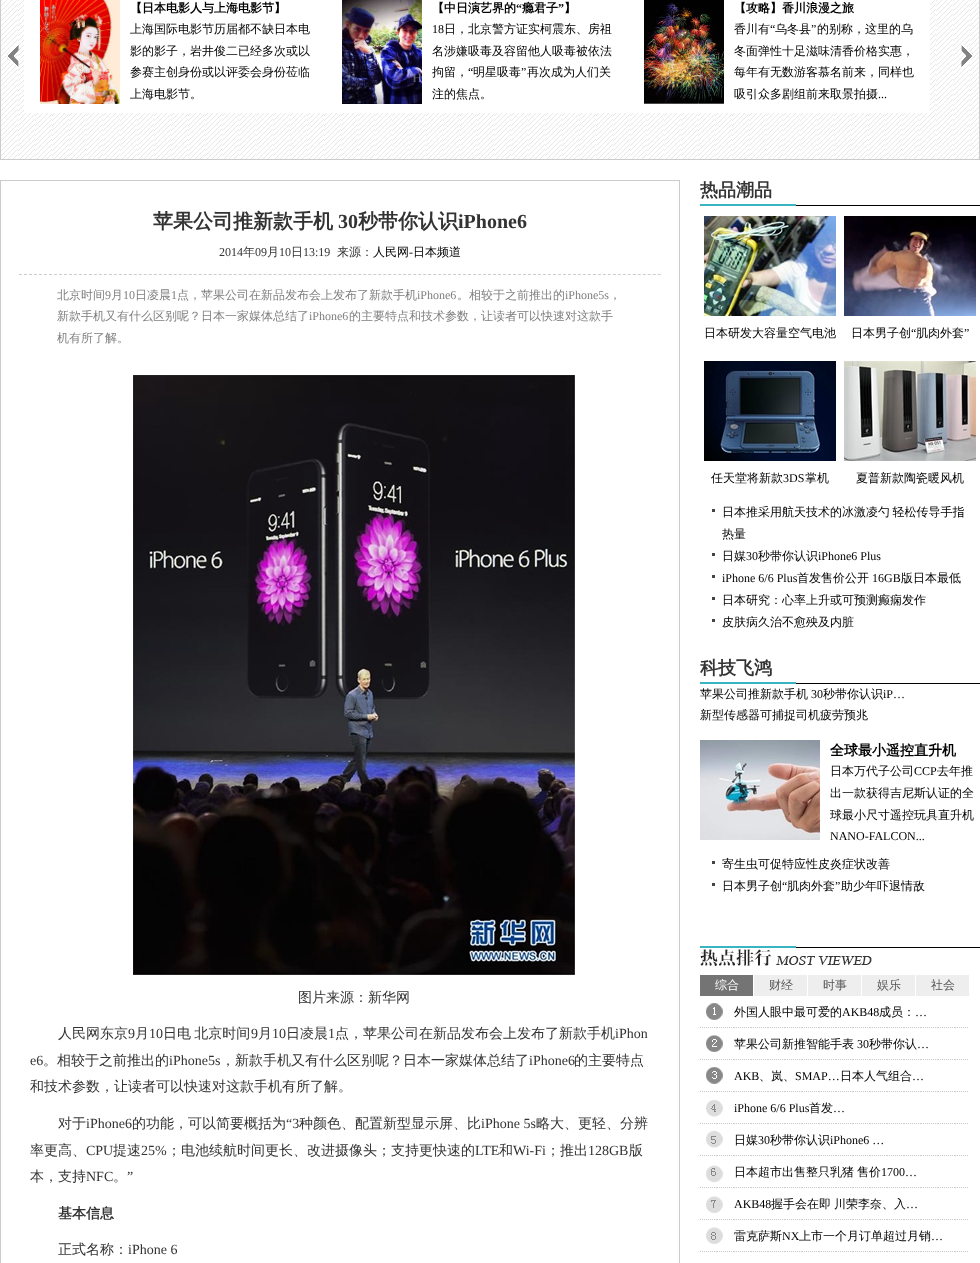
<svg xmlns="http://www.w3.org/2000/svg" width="980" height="1263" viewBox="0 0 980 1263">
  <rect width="100%" height="100%" fill="rgb(255,255,255)"/>
  <image x="1" y="0" width="978" height="159" href="pic1.png"/>
  <rect x="0.5" y="-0.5" width="979" height="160" fill="none" stroke="rgb(204,204,204)"/>
  <image x="6" y="44" width="13" height="24" href="pic2.png"/>
  <rect x="24" y="0" width="906" height="113" fill="rgb(255,255,255)"/>
  <image x="40" y="0" width="80" height="104" href="pic3.png"/>
  <text x="130" y="12" font-family="WenQuanYi Zen Hei" font-size="12" font-weight="bold" fill="rgb(0,0,0)">【日本电影人与上海电影节】</text>
  <g font-family="WenQuanYi Zen Hei" font-size="12" font-weight="500" fill="rgb(0,0,0)">
    <text>
      <tspan x="130" y="33">上海国际电影节历届都不缺日本电</tspan>
      <tspan x="130" y="55">影的影子，岩井俊二已经多次或以</tspan>
      <tspan x="130" y="76">参赛主创身份或以评委会身份莅临</tspan>
      <tspan x="130" y="98">上海电影节。</tspan>
    </text>
  </g>
  <image x="342" y="0" width="80" height="104" href="pic4.png"/>
  <text x="432" y="12" font-family="WenQuanYi Zen Hei" font-size="12" font-weight="bold" fill="rgb(0,0,0)">【中日演艺界的</text>
  <text x="516" y="12" font-family="Liberation Serif" font-size="12" font-weight="bold" fill="rgb(0,0,0)">“</text>
  <text x="522" y="12" font-family="WenQuanYi Zen Hei" font-size="12" font-weight="bold" fill="rgb(0,0,0)">瘾君子</text>
  <text x="558" y="12" font-family="Liberation Serif" font-size="12" font-weight="bold" fill="rgb(0,0,0)">”</text>
  <text x="564" y="12" font-family="WenQuanYi Zen Hei" font-size="12" font-weight="bold" fill="rgb(0,0,0)">】</text>
  <text x="432" y="33" font-family="Liberation Serif" font-size="12" fill="rgb(0,0,0)">18</text>
  <g font-family="WenQuanYi Zen Hei" font-size="12" font-weight="500" fill="rgb(0,0,0)">
    <text x="444" y="33">日，北京警方证实柯震东、房祖</text>
    <text>
      <tspan x="432" y="55">名涉嫌吸毒及容留他人吸毒被依法</tspan>
      <tspan x="432" y="76">拘留，</tspan>
    </text>
  </g>
  <text x="468" y="76" font-family="Liberation Serif" font-size="12" fill="rgb(0,0,0)">“</text>
  <text x="473" y="76" font-family="WenQuanYi Zen Hei" font-size="12" font-weight="500" fill="rgb(0,0,0)">明星吸毒</text>
  <text x="521" y="76" font-family="Liberation Serif" font-size="12" fill="rgb(0,0,0)">”</text>
  <g font-family="WenQuanYi Zen Hei" font-size="12" font-weight="500" fill="rgb(0,0,0)">
    <text x="527" y="76">再次成为人们关</text>
    <text x="432" y="98">注的焦点。</text>
  </g>
  <image x="644" y="0" width="80" height="104" href="pic5.png"/>
  <text x="734" y="12" font-family="WenQuanYi Zen Hei" font-size="12" font-weight="bold" fill="rgb(0,0,0)">【攻略】香川浪漫之旅</text>
  <text x="734" y="33" font-family="WenQuanYi Zen Hei" font-size="12" font-weight="500" fill="rgb(0,0,0)">香川有</text>
  <text x="770" y="33" font-family="Liberation Serif" font-size="12" fill="rgb(0,0,0)">“</text>
  <text x="775" y="33" font-family="WenQuanYi Zen Hei" font-size="12" font-weight="500" fill="rgb(0,0,0)">乌冬县</text>
  <text x="811" y="33" font-family="Liberation Serif" font-size="12" fill="rgb(0,0,0)">”</text>
  <g font-family="WenQuanYi Zen Hei" font-size="12" font-weight="500" fill="rgb(0,0,0)">
    <text x="817" y="33">的别称，这里的乌</text>
    <text>
      <tspan x="734" y="55">冬面弹性十足滋味清香价格实惠，</tspan>
      <tspan x="734" y="76">每年有无数游客慕名前来，同样也</tspan>
      <tspan x="734" y="98">吸引众多剧组前来取景拍摄</tspan>
    </text>
  </g>
  <text x="878" y="98" font-family="Liberation Serif" font-size="12" fill="rgb(0,0,0)">...</text>
  <image x="961" y="44" width="12" height="24" href="pic6.png"/>
  <rect x="0.5" y="180.5" width="679" height="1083" fill="none" stroke="rgb(204,204,204)"/>
  <text x="153" y="228" font-family="WenQuanYi Zen Hei" font-size="20" font-weight="bold" fill="rgb(51,51,51)">苹果公司推新款手机</text>
  <text x="338" y="228" font-family="Liberation Serif" font-size="20" font-weight="bold" fill="rgb(51,51,51)">30</text>
  <text x="358" y="228" font-family="WenQuanYi Zen Hei" font-size="20" font-weight="bold" fill="rgb(51,51,51)">秒带你认识</text>
  <text x="458" y="228" font-family="Liberation Serif" font-size="20" font-weight="bold" fill="rgb(51,51,51)">iPhone6</text>
  <text x="219" y="256" font-family="Liberation Serif" font-size="12" fill="rgb(51,51,51)">2014</text>
  <text x="243" y="256" font-family="WenQuanYi Zen Hei" font-size="12" font-weight="500" fill="rgb(51,51,51)">年</text>
  <text x="255" y="256" font-family="Liberation Serif" font-size="12" fill="rgb(51,51,51)">09</text>
  <text x="267" y="256" font-family="WenQuanYi Zen Hei" font-size="12" font-weight="500" fill="rgb(51,51,51)">月</text>
  <text x="279" y="256" font-family="Liberation Serif" font-size="12" fill="rgb(51,51,51)">10</text>
  <text x="291" y="256" font-family="WenQuanYi Zen Hei" font-size="12" font-weight="500" fill="rgb(51,51,51)">日</text>
  <text x="303" y="256" font-family="Liberation Serif" font-size="12" fill="rgb(51,51,51)">13:19</text>
  <text x="337" y="256" font-family="WenQuanYi Zen Hei" font-size="12" font-weight="500" fill="rgb(51,51,51)">来源：</text>
  <text x="373" y="256" font-family="WenQuanYi Zen Hei" font-size="12" font-weight="500" fill="rgb(0,0,0)">人民网</text>
  <text x="409" y="256" font-family="Liberation Serif" font-size="12" fill="rgb(0,0,0)">-</text>
  <text x="413" y="256" font-family="WenQuanYi Zen Hei" font-size="12" font-weight="500" fill="rgb(0,0,0)">日本频道</text>
  <path d="M19 274.5H661" fill="none" stroke="rgb(204,204,204)" stroke-dasharray="3 1.99"/>
  <text x="57" y="299" font-family="WenQuanYi Zen Hei" font-size="12" font-weight="500" fill="rgb(127,127,127)">北京时间</text>
  <text x="105" y="299" font-family="Liberation Serif" font-size="12" fill="rgb(127,127,127)">9</text>
  <text x="111" y="299" font-family="WenQuanYi Zen Hei" font-size="12" font-weight="500" fill="rgb(127,127,127)">月</text>
  <text x="123" y="299" font-family="Liberation Serif" font-size="12" fill="rgb(127,127,127)">10</text>
  <text x="135" y="299" font-family="WenQuanYi Zen Hei" font-size="12" font-weight="500" fill="rgb(127,127,127)">日凌晨</text>
  <text x="171" y="299" font-family="Liberation Serif" font-size="12" fill="rgb(127,127,127)">1</text>
  <text x="177" y="299" font-family="WenQuanYi Zen Hei" font-size="12" font-weight="500" fill="rgb(127,127,127)">点，苹果公司在新品发布会上发布了新款手机</text>
  <text x="417" y="299" font-family="Liberation Serif" font-size="12" fill="rgb(127,127,127)">iPhone6</text>
  <text x="457" y="299" font-family="WenQuanYi Zen Hei" font-size="12" font-weight="500" fill="rgb(127,127,127)">。相较于之前推出的</text>
  <text x="565" y="299" font-family="Liberation Serif" font-size="12" fill="rgb(127,127,127)">iPhone5s</text>
  <g font-family="WenQuanYi Zen Hei" font-size="12" font-weight="500" fill="rgb(127,127,127)">
    <text x="609" y="299">，</text>
    <text x="57" y="320">新款手机又有什么区别呢？日本一家媒体总结了</text>
  </g>
  <text x="309" y="320" font-family="Liberation Serif" font-size="12" fill="rgb(127,127,127)">iPhone6</text>
  <g font-family="WenQuanYi Zen Hei" font-size="12" font-weight="500" fill="rgb(127,127,127)">
    <text x="349" y="320">的主要特点和技术参数，让读者可以快速对这款手</text>
    <text x="57" y="342">机有所了解。</text>
  </g>
  <image x="133" y="375" width="442" height="600" href="pic7.png"/>
  <g font-family="WenQuanYi Zen Hei" font-size="14" font-weight="500" fill="rgb(51,51,51)">
    <text x="298" y="1002">图片来源：新华网</text>
    <text x="58" y="1038">人民网东京</text>
  </g>
  <text x="128" y="1038" font-family="Liberation Serif" font-size="14" fill="rgb(51,51,51)">9</text>
  <text x="135" y="1038" font-family="WenQuanYi Zen Hei" font-size="14" font-weight="500" fill="rgb(51,51,51)">月</text>
  <text x="149" y="1038" font-family="Liberation Serif" font-size="14" fill="rgb(51,51,51)">10</text>
  <text x="163" y="1038" word-spacing="-1" font-family="WenQuanYi Zen Hei" font-size="14" font-weight="500" fill="rgb(51,51,51)">日电 北京时间</text>
  <text x="251" y="1038" font-family="Liberation Serif" font-size="14" fill="rgb(51,51,51)">9</text>
  <text x="258" y="1038" font-family="WenQuanYi Zen Hei" font-size="14" font-weight="500" fill="rgb(51,51,51)">月</text>
  <text x="272" y="1038" font-family="Liberation Serif" font-size="14" fill="rgb(51,51,51)">10</text>
  <text x="286" y="1038" font-family="WenQuanYi Zen Hei" font-size="14" font-weight="500" fill="rgb(51,51,51)">日凌晨</text>
  <text x="328" y="1038" font-family="Liberation Serif" font-size="14" fill="rgb(51,51,51)">1</text>
  <text x="335" y="1038" font-family="WenQuanYi Zen Hei" font-size="14" font-weight="500" fill="rgb(51,51,51)">点，苹果公司在新品发布会上发布了新款手机</text>
  <g font-family="Liberation Serif" font-size="14" fill="rgb(51,51,51)">
    <text x="615" y="1038">iPhon</text>
    <text x="30" y="1065">e6</text>
  </g>
  <text x="43" y="1065" font-family="WenQuanYi Zen Hei" font-size="14" font-weight="500" fill="rgb(51,51,51)">。相较于之前推出的</text>
  <text x="169" y="1065" font-family="Liberation Serif" font-size="14" fill="rgb(51,51,51)">iPhone5s</text>
  <text x="221" y="1065" font-family="WenQuanYi Zen Hei" font-size="14" font-weight="500" fill="rgb(51,51,51)">，新款手机又有什么区别呢？日本一家媒体总结了</text>
  <text x="529" y="1065" font-family="Liberation Serif" font-size="14" fill="rgb(51,51,51)">iPhone6</text>
  <g font-family="WenQuanYi Zen Hei" font-size="14" font-weight="500" fill="rgb(51,51,51)">
    <text x="574" y="1065">的主要特点</text>
    <text x="30" y="1091">和技术参数，让读者可以快速对这款手机有所了解。</text>
    <text x="58" y="1128">对于</text>
  </g>
  <text x="86" y="1128" font-family="Liberation Serif" font-size="14" fill="rgb(51,51,51)">iPhone6</text>
  <text x="132" y="1128" font-family="WenQuanYi Zen Hei" font-size="14" font-weight="500" fill="rgb(51,51,51)">的功能，可以简要概括为</text>
  <text x="286" y="1128" font-family="Liberation Serif" font-size="14" fill="rgb(51,51,51)">“3</text>
  <text x="299" y="1128" font-family="WenQuanYi Zen Hei" font-size="14" font-weight="500" fill="rgb(51,51,51)">种颜色、配置新型显示屏、比</text>
  <text x="481" y="1128" font-family="Liberation Serif" font-size="14" fill="rgb(51,51,51)">iPhone 5s</text>
  <g font-family="WenQuanYi Zen Hei" font-size="14" font-weight="500" fill="rgb(51,51,51)">
    <text x="536" y="1128">略大、更轻、分辨</text>
    <text x="30" y="1155">率更高、</text>
  </g>
  <text x="86" y="1155" font-family="Liberation Serif" font-size="14" fill="rgb(51,51,51)">CPU</text>
  <text x="113" y="1155" font-family="WenQuanYi Zen Hei" font-size="14" font-weight="500" fill="rgb(51,51,51)">提速</text>
  <text x="141" y="1155" font-family="Liberation Serif" font-size="14" fill="rgb(51,51,51)">25%</text>
  <text x="167" y="1155" font-family="WenQuanYi Zen Hei" font-size="14" font-weight="500" fill="rgb(51,51,51)">；电池续航时间更长、改进摄像头；支持更快速的</text>
  <text x="475" y="1155" font-family="Liberation Serif" font-size="14" fill="rgb(51,51,51)">LTE</text>
  <text x="499" y="1155" font-family="WenQuanYi Zen Hei" font-size="14" font-weight="500" fill="rgb(51,51,51)">和</text>
  <text x="513" y="1155" font-family="Liberation Serif" font-size="14" fill="rgb(51,51,51)">Wi-Fi</text>
  <text x="546" y="1155" font-family="WenQuanYi Zen Hei" font-size="14" font-weight="500" fill="rgb(51,51,51)">；推出</text>
  <text x="588" y="1155" font-family="Liberation Serif" font-size="14" fill="rgb(51,51,51)">128GB</text>
  <g font-family="WenQuanYi Zen Hei" font-size="14" font-weight="500" fill="rgb(51,51,51)">
    <text x="629" y="1155">版</text>
    <text x="30" y="1181">本，支持</text>
  </g>
  <g font-family="Liberation Serif" font-size="14" fill="rgb(51,51,51)">
    <text x="86" y="1181">NFC</text>
    <text x="127" y="1181">”</text>
  </g>
  <text x="113" y="1181" font-family="WenQuanYi Zen Hei" font-size="14" font-weight="500" fill="rgb(51,51,51)">。</text>
  <text x="58" y="1218" font-family="WenQuanYi Zen Hei" font-size="14" font-weight="bold" fill="rgb(51,51,51)">基本信息</text>
  <text x="58" y="1254" font-family="WenQuanYi Zen Hei" font-size="14" font-weight="500" fill="rgb(51,51,51)">正式名称：</text>
  <text x="128" y="1254" font-family="Liberation Serif" font-size="14" fill="rgb(51,51,51)">iPhone 6</text>
  <image x="700" y="204" width="280" height="2" href="pic8.png"/>
  <text x="700" y="196" font-family="WenQuanYi Zen Hei" font-size="18" font-weight="bold" fill="rgb(51,51,51)">热品潮品</text>
  <image x="704" y="216" width="132" height="100" href="pic9.png"/>
  <text x="704" y="337" font-family="WenQuanYi Zen Hei" font-size="12" font-weight="500" fill="rgb(0,0,0)">日本研发大容量空气电池</text>
  <image x="844" y="216" width="132" height="100" href="pic10.png"/>
  <text x="851" y="337" font-family="WenQuanYi Zen Hei" font-size="12" font-weight="500" fill="rgb(0,0,0)">日本男子创</text>
  <text x="911" y="337" font-family="Liberation Serif" font-size="12" fill="rgb(0,0,0)">“</text>
  <text x="916" y="337" font-family="WenQuanYi Zen Hei" font-size="12" font-weight="500" fill="rgb(0,0,0)">肌肉外套</text>
  <text x="964" y="337" font-family="Liberation Serif" font-size="12" fill="rgb(0,0,0)">”</text>
  <image x="704" y="361" width="132" height="100" href="pic11.png"/>
  <text x="711" y="482" font-family="WenQuanYi Zen Hei" font-size="12" font-weight="500" fill="rgb(0,0,0)">任天堂将新款</text>
  <text x="783" y="482" font-family="Liberation Serif" font-size="12" fill="rgb(0,0,0)">3DS</text>
  <text x="805" y="482" font-family="WenQuanYi Zen Hei" font-size="12" font-weight="500" fill="rgb(0,0,0)">掌机</text>
  <image x="844" y="361" width="132" height="100" href="pic12.png"/>
  <text x="856" y="482" font-family="WenQuanYi Zen Hei" font-size="12" font-weight="500" fill="rgb(0,0,0)">夏普新款陶瓷暖风机</text>
  <rect x="712" y="509" width="3" height="3" fill="rgb(68,68,68)"/>
  <g font-family="WenQuanYi Zen Hei" font-size="12" font-weight="500" fill="rgb(0,0,0)">
    <text>
      <tspan x="722" y="516" word-spacing="-1">日本推采用航天技术的冰激凌勺 轻松传导手指</tspan>
      <tspan x="722" y="538">热量</tspan>
    </text>
  </g>
  <rect x="712" y="553" width="3" height="3" fill="rgb(68,68,68)"/>
  <text x="722" y="560" font-family="WenQuanYi Zen Hei" font-size="12" font-weight="500" fill="rgb(0,0,0)">日媒</text>
  <text x="746" y="560" font-family="Liberation Serif" font-size="12" fill="rgb(0,0,0)">30</text>
  <text x="758" y="560" font-family="WenQuanYi Zen Hei" font-size="12" font-weight="500" fill="rgb(0,0,0)">秒带你认识</text>
  <text x="818" y="560" font-family="Liberation Serif" font-size="12" fill="rgb(0,0,0)">iPhone6 Plus</text>
  <rect x="712" y="575" width="3" height="3" fill="rgb(68,68,68)"/>
  <text x="722" y="582" font-family="Liberation Serif" font-size="12" fill="rgb(0,0,0)">iPhone 6/6 Plus</text>
  <text x="797" y="582" font-family="WenQuanYi Zen Hei" font-size="12" font-weight="500" fill="rgb(0,0,0)">首发售价公开</text>
  <text x="872" y="582" font-family="Liberation Serif" font-size="12" fill="rgb(0,0,0)">16GB</text>
  <text x="901" y="582" font-family="WenQuanYi Zen Hei" font-size="12" font-weight="500" fill="rgb(0,0,0)">版日本最低</text>
  <rect x="712" y="597" width="3" height="3" fill="rgb(68,68,68)"/>
  <text x="722" y="604" font-family="WenQuanYi Zen Hei" font-size="12" font-weight="500" fill="rgb(0,0,0)">日本研究：心率上升或可预测癫痫发作</text>
  <rect x="712" y="619" width="3" height="3" fill="rgb(68,68,68)"/>
  <text x="722" y="626" font-family="WenQuanYi Zen Hei" font-size="12" font-weight="500" fill="rgb(0,0,0)">皮肤病久治不愈殃及内脏</text>
  <image x="700" y="682" width="280" height="2" href="pic8.png"/>
  <text x="700" y="674" font-family="WenQuanYi Zen Hei" font-size="18" font-weight="bold" fill="rgb(51,51,51)">科技飞鸿</text>
  <text x="700" y="698" font-family="WenQuanYi Zen Hei" font-size="12" font-weight="500" fill="rgb(0,0,0)">苹果公司推新款手机</text>
  <text x="811" y="698" font-family="Liberation Serif" font-size="12" fill="rgb(0,0,0)">30</text>
  <text x="823" y="698" font-family="WenQuanYi Zen Hei" font-size="12" font-weight="500" fill="rgb(0,0,0)">秒带你认识</text>
  <text x="883" y="698" font-family="Liberation Serif" font-size="12" fill="rgb(0,0,0)">iP…</text>
  <text x="700" y="719" font-family="WenQuanYi Zen Hei" font-size="12" font-weight="500" fill="rgb(0,0,0)">新型传感器可捕捉司机疲劳预兆</text>
  <image x="700" y="740" width="120" height="100" href="pic13.png"/>
  <text x="830" y="755" font-family="WenQuanYi Zen Hei" font-size="14" font-weight="bold" fill="rgb(0,0,0)">全球最小遥控直升机</text>
  <text x="830" y="775" font-family="WenQuanYi Zen Hei" font-size="12" font-weight="500" fill="rgb(0,0,0)">日本万代子公司</text>
  <text x="914" y="775" font-family="Liberation Serif" font-size="12" fill="rgb(0,0,0)">CCP</text>
  <g font-family="WenQuanYi Zen Hei" font-size="12" font-weight="500" fill="rgb(0,0,0)">
    <text x="937" y="775">去年推</text>
    <text>
      <tspan x="830" y="797">出一款获得吉尼斯认证的全</tspan>
      <tspan x="830" y="819">球最小尺寸遥控玩具直升机</tspan>
    </text>
  </g>
  <text x="830" y="840" font-family="Liberation Serif" font-size="12" fill="rgb(0,0,0)">NANO-FALCON...</text>
  <rect x="712" y="861" width="3" height="3" fill="rgb(68,68,68)"/>
  <text x="722" y="868" font-family="WenQuanYi Zen Hei" font-size="12" font-weight="500" fill="rgb(0,0,0)">寄生虫可促特应性皮炎症状改善</text>
  <rect x="712" y="883" width="3" height="3" fill="rgb(68,68,68)"/>
  <text x="722" y="890" font-family="WenQuanYi Zen Hei" font-size="12" font-weight="500" fill="rgb(0,0,0)">日本男子创</text>
  <text x="782" y="890" font-family="Liberation Serif" font-size="12" fill="rgb(0,0,0)">“</text>
  <text x="787" y="890" font-family="WenQuanYi Zen Hei" font-size="12" font-weight="500" fill="rgb(0,0,0)">肌肉外套</text>
  <text x="835" y="890" font-family="Liberation Serif" font-size="12" fill="rgb(0,0,0)">”</text>
  <text x="841" y="890" font-family="WenQuanYi Zen Hei" font-size="12" font-weight="500" fill="rgb(0,0,0)">助少年吓退情敌</text>
  <image x="700" y="946" width="280" height="2" href="pic8.png"/>
  <image x="700" y="949" width="172" height="17" href="pic14.png"/>
  <rect x="700" y="975" width="53" height="21" fill="rgb(116,116,116)"/>
  <text x="715" y="989" font-family="WenQuanYi Zen Hei" font-size="12" font-weight="500" fill="rgb(255,255,255)">综合</text>
  <rect x="754" y="975" width="53" height="21" fill="rgb(238,238,238)"/>
  <text x="769" y="989" font-family="WenQuanYi Zen Hei" font-size="12" font-weight="500" fill="rgb(87,86,86)">财经</text>
  <rect x="808" y="975" width="53" height="21" fill="rgb(238,238,238)"/>
  <text x="823" y="989" font-family="WenQuanYi Zen Hei" font-size="12" font-weight="500" fill="rgb(87,86,86)">时事</text>
  <rect x="862" y="975" width="53" height="21" fill="rgb(238,238,238)"/>
  <text x="877" y="989" font-family="WenQuanYi Zen Hei" font-size="12" font-weight="500" fill="rgb(87,86,86)">娱乐</text>
  <rect x="916" y="975" width="53" height="21" fill="rgb(238,238,238)"/>
  <text x="931" y="989" font-family="WenQuanYi Zen Hei" font-size="12" font-weight="500" fill="rgb(87,86,86)">社会</text>
  <image x="700" y="1003" width="268" height="249" href="pic15.png"/>
  <text x="734" y="1016" font-family="WenQuanYi Zen Hei" font-size="12" font-weight="500" fill="rgb(0,0,0)">外国人眼中最可爱的</text>
  <text x="842" y="1016" font-family="Liberation Serif" font-size="12" fill="rgb(0,0,0)">AKB48</text>
  <text x="879" y="1016" font-family="WenQuanYi Zen Hei" font-size="12" font-weight="500" fill="rgb(0,0,0)">成员：</text>
  <text x="915" y="1016" font-family="Liberation Serif" font-size="12" fill="rgb(0,0,0)">…</text>
  <text x="734" y="1048" font-family="WenQuanYi Zen Hei" font-size="12" font-weight="500" fill="rgb(0,0,0)">苹果公司新推智能手表</text>
  <text x="857" y="1048" font-family="Liberation Serif" font-size="12" fill="rgb(0,0,0)">30</text>
  <text x="869" y="1048" font-family="WenQuanYi Zen Hei" font-size="12" font-weight="500" fill="rgb(0,0,0)">秒带你认</text>
  <g font-family="Liberation Serif" font-size="12" fill="rgb(0,0,0)">
    <text x="917" y="1048">…</text>
    <text x="734" y="1080">AKB</text>
  </g>
  <text x="759" y="1080" font-family="WenQuanYi Zen Hei" font-size="12" font-weight="500" fill="rgb(0,0,0)">、岚、</text>
  <text x="795" y="1080" font-family="Liberation Serif" font-size="12" fill="rgb(0,0,0)">SMAP…</text>
  <text x="840" y="1080" font-family="WenQuanYi Zen Hei" font-size="12" font-weight="500" fill="rgb(0,0,0)">日本人气组合</text>
  <g font-family="Liberation Serif" font-size="12" fill="rgb(0,0,0)">
    <text x="912" y="1080">…</text>
    <text x="734" y="1112">iPhone 6/6 Plus</text>
  </g>
  <text x="809" y="1112" font-family="WenQuanYi Zen Hei" font-size="12" font-weight="500" fill="rgb(0,0,0)">首发</text>
  <text x="833" y="1112" font-family="Liberation Serif" font-size="12" fill="rgb(0,0,0)">…</text>
  <text x="734" y="1144" font-family="WenQuanYi Zen Hei" font-size="12" font-weight="500" fill="rgb(0,0,0)">日媒</text>
  <text x="758" y="1144" font-family="Liberation Serif" font-size="12" fill="rgb(0,0,0)">30</text>
  <text x="770" y="1144" font-family="WenQuanYi Zen Hei" font-size="12" font-weight="500" fill="rgb(0,0,0)">秒带你认识</text>
  <text x="830" y="1144" font-family="Liberation Serif" font-size="12" fill="rgb(0,0,0)">iPhone6 …</text>
  <g font-family="WenQuanYi Zen Hei" font-size="12" font-weight="500" fill="rgb(0,0,0)">
    <text x="734" y="1176">日本超市出售整只乳猪</text>
    <text x="857" y="1176">售价</text>
  </g>
  <g font-family="Liberation Serif" font-size="12" fill="rgb(0,0,0)">
    <text x="881" y="1176">1700…</text>
    <text x="734" y="1208">AKB48</text>
  </g>
  <g font-family="WenQuanYi Zen Hei" font-size="12" font-weight="500" fill="rgb(0,0,0)">
    <text x="771" y="1208">握手会在即</text>
    <text x="834" y="1208">川荣李奈、入</text>
  </g>
  <text x="906" y="1208" font-family="Liberation Serif" font-size="12" fill="rgb(0,0,0)">…</text>
  <text x="734" y="1240" font-family="WenQuanYi Zen Hei" font-size="12" font-weight="500" fill="rgb(0,0,0)">雷克萨斯</text>
  <text x="782" y="1240" font-family="Liberation Serif" font-size="12" fill="rgb(0,0,0)">NX</text>
  <text x="799" y="1240" font-family="WenQuanYi Zen Hei" font-size="12" font-weight="500" fill="rgb(0,0,0)">上市一个月订单超过月销</text>
  <text x="931" y="1240" font-family="Liberation Serif" font-size="12" fill="rgb(0,0,0)">…</text>
</svg>
